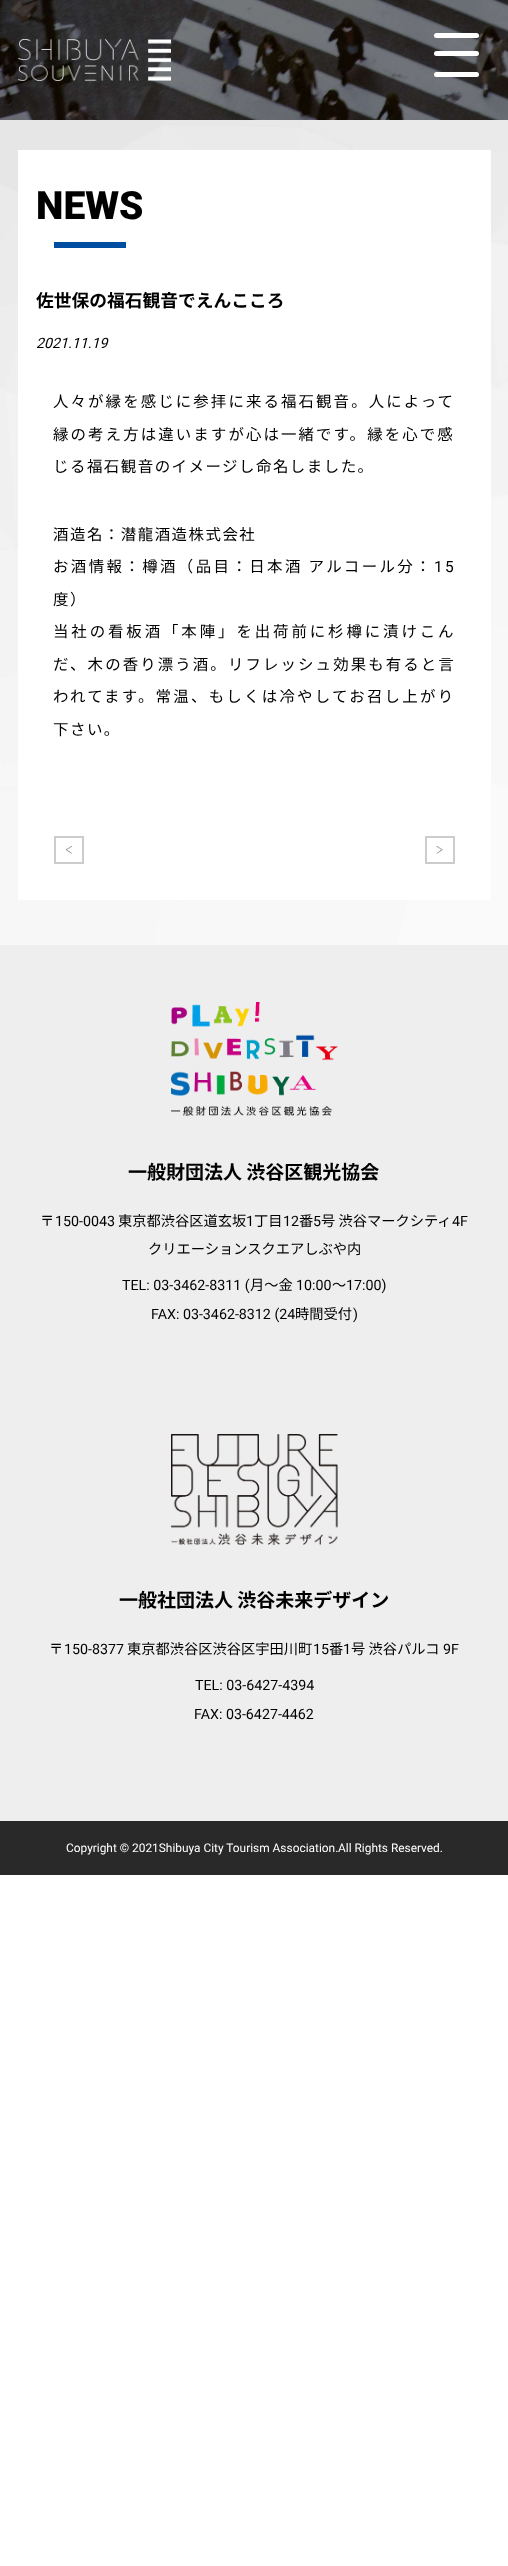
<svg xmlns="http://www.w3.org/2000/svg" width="508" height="2566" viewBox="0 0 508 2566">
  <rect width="100%" height="100%" fill="rgb(255,255,255)"/>
  <image x="0" y="0" width="508" height="120" href="pic1.png"/>
  <image x="18" y="39" width="153" height="42" href="pic2.png"/>
  <rect x="434" y="33" width="45" height="5" rx="2.5" fill="rgb(255,255,255)"/>
  <rect x="434" y="51" width="45" height="5" rx="2.5" fill="rgb(255,255,255)"/>
  <rect x="434" y="72" width="45" height="5" rx="2.5" fill="rgb(255,255,255)"/>
  <image x="0" y="120" width="508" height="825" href="pic3.png"/>
  <rect x="18" y="150" width="473" height="750" fill="rgb(255,255,255)"/>
  <text x="36" y="219" font-family="Roboto" font-size="39" font-weight="900" fill="rgb(0,0,0)">NEWS</text>
  <rect x="54" y="242" width="72" height="6" fill="rgb(0,78,162)"/>
  <text x="36" y="307" font-family="Noto Sans JP" font-size="17.75" font-weight="bold" fill="rgb(0,0,0)">佐世保の福石観音でえんこころ</text>
  <text x="36" y="348" font-family="Roboto" font-size="14.25" font-style="italic" fill="rgb(0,0,0)">2021.11.19</text>
  <g font-family="Noto Sans JP" font-size="15.45" letter-spacing="2.1" fill="rgb(0,0,0)">
    <text x="53" y="407">人々が縁を感じに参拝に来る福石観音。人によって</text>
    <text x="53" y="440">縁の考え方は違いますが心は一緒です。縁を心で感</text>
  </g>
  <g font-family="Noto Sans JP" font-size="15.45" letter-spacing="1.5" fill="rgb(0,0,0)">
    <text x="53" y="472">じる福石観音のイメージし命名しました。</text>
    <text x="53" y="540">酒造名：潜龍酒造株式会社</text>
  </g>
  <text x="53" y="572" font-family="Noto Sans JP" font-size="15.45" letter-spacing="2.4" fill="rgb(0,0,0)">お酒情報：樽酒（品目：日本酒 アルコール分：</text>
  <text x="434" y="572" font-family="Roboto" font-size="15.45" letter-spacing="2.4" fill="rgb(0,0,0)">15</text>
  <text x="53" y="605" font-family="Noto Sans JP" font-size="15.45" letter-spacing="1.5" fill="rgb(0,0,0)">度）</text>
  <text x="53" y="637" font-family="Noto Sans JP" font-size="15.45" letter-spacing="2.9" fill="rgb(0,0,0)">当社の看板酒「本陣」を出荷前に杉樽に漬けこん</text>
  <text x="53" y="670" font-family="Noto Sans JP" font-size="15.45" letter-spacing="2.1" fill="rgb(0,0,0)">だ、木の香り漂う酒。リフレッシュ効果も有ると言</text>
  <text x="53" y="702" font-family="Noto Sans JP" font-size="15.45" letter-spacing="2.25" fill="rgb(0,0,0)">われてます。常温、もしくは冷やしてお召し上がり</text>
  <text x="53" y="735" font-family="Noto Sans JP" font-size="15.45" letter-spacing="1.5" fill="rgb(0,0,0)">下さい。</text>
  <rect x="55" y="837" width="28" height="26" fill="none" stroke="rgb(204,204,204)" stroke-width="2"/>
  <image x="66" y="846" width="6" height="8" href="pic4.png"/>
  <rect x="426" y="837" width="28" height="26" fill="none" stroke="rgb(204,204,204)" stroke-width="2"/>
  <image x="436" y="846" width="7" height="8" href="pic5.png"/>
  <rect x="0" y="945" width="508" height="876" fill="rgb(238,238,238)"/>
  <image x="171" y="1002" width="167" height="114" href="pic6.png"/>
  <text x="128" y="1179" font-family="Noto Sans JP" font-size="19" font-weight="bold" fill="rgb(0,0,0)">一般財団法人 渋谷区観光協会</text>
  <text x="40" y="1226" font-family="Noto Sans JP" font-size="14.25" fill="rgb(0,0,0)">〒</text>
  <text x="55" y="1226" font-family="Roboto" font-size="14.25" fill="rgb(0,0,0)">150-0043</text>
  <text x="118" y="1226" font-family="Noto Sans JP" font-size="14.25" fill="rgb(0,0,0)">東京都渋谷区道玄坂</text>
  <text x="246" y="1226" font-family="Roboto" font-size="14.25" fill="rgb(0,0,0)">1</text>
  <text x="254" y="1226" font-family="Noto Sans JP" font-size="14.25" fill="rgb(0,0,0)">丁目</text>
  <text x="283" y="1226" font-family="Roboto" font-size="14.25" fill="rgb(0,0,0)">12</text>
  <text x="299" y="1226" font-family="Noto Sans JP" font-size="14.25" fill="rgb(0,0,0)">番</text>
  <text x="313" y="1226" font-family="Roboto" font-size="14.25" fill="rgb(0,0,0)">5</text>
  <text x="321" y="1226" font-family="Noto Sans JP" font-size="14.25" fill="rgb(0,0,0)">号 渋谷マークシティ</text>
  <text x="452" y="1226" font-family="Roboto" font-size="14.25" fill="rgb(0,0,0)">4F</text>
  <text x="148" y="1254" font-family="Noto Sans JP" font-size="14.25" fill="rgb(0,0,0)">クリエーションスクエアしぶや内</text>
  <text x="122" y="1290" font-family="Roboto" font-size="14.25" fill="rgb(0,0,0)">TEL: 03-3462-8311 (</text>
  <text x="250" y="1290" font-family="Noto Sans JP" font-size="14.25" fill="rgb(0,0,0)">月～金</text>
  <text x="296" y="1290" font-family="Roboto" font-size="14.25" fill="rgb(0,0,0)">10:00</text>
  <text x="332" y="1290" font-family="Noto Sans JP" font-size="14.25" fill="rgb(0,0,0)">〜</text>
  <g font-family="Roboto" font-size="14.25" fill="rgb(0,0,0)">
    <text x="346" y="1290">17:00)</text>
    <text x="151" y="1319">FAX: 03-3462-8312 (24</text>
  </g>
  <text x="295" y="1319" font-family="Noto Sans JP" font-size="14.25" fill="rgb(0,0,0)">時間受付</text>
  <text x="353" y="1319" font-family="Roboto" font-size="14.25" fill="rgb(0,0,0)">)</text>
  <image x="171" y="1434" width="167" height="111" href="pic7.png"/>
  <text x="119" y="1607" font-family="Noto Sans JP" font-size="19" font-weight="bold" fill="rgb(0,0,0)">一般社団法人 渋谷未来デザイン</text>
  <text x="49" y="1654" font-family="Noto Sans JP" font-size="14.25" fill="rgb(0,0,0)">〒</text>
  <text x="64" y="1654" font-family="Roboto" font-size="14.25" fill="rgb(0,0,0)">150-8377</text>
  <text x="127" y="1654" font-family="Noto Sans JP" font-size="14.25" fill="rgb(0,0,0)">東京都渋谷区渋谷区宇田川町</text>
  <text x="313" y="1654" font-family="Roboto" font-size="14.25" fill="rgb(0,0,0)">15</text>
  <text x="329" y="1654" font-family="Noto Sans JP" font-size="14.25" fill="rgb(0,0,0)">番</text>
  <text x="343" y="1654" font-family="Roboto" font-size="14.25" fill="rgb(0,0,0)">1</text>
  <text x="351" y="1654" font-family="Noto Sans JP" font-size="14.25" fill="rgb(0,0,0)">号 渋谷パルコ</text>
  <g font-family="Roboto" font-size="14.25" fill="rgb(0,0,0)">
    <text x="443" y="1654">9F</text>
    <text x="195" y="1690">TEL: 03-6427-4394</text>
    <text x="194" y="1719">FAX: 03-6427-4462</text>
  </g>
  <rect x="0" y="1821" width="508" height="54" fill="rgb(41,41,41)"/>
  <g font-family="Roboto" font-size="11.9" fill="rgb(255,255,255)">
    <text x="66" y="1852">Copyright © 2021Shibuya City Tourism Association.</text>
    <text x="338" y="1852">All Rights Reserved.</text>
  </g>
</svg>
